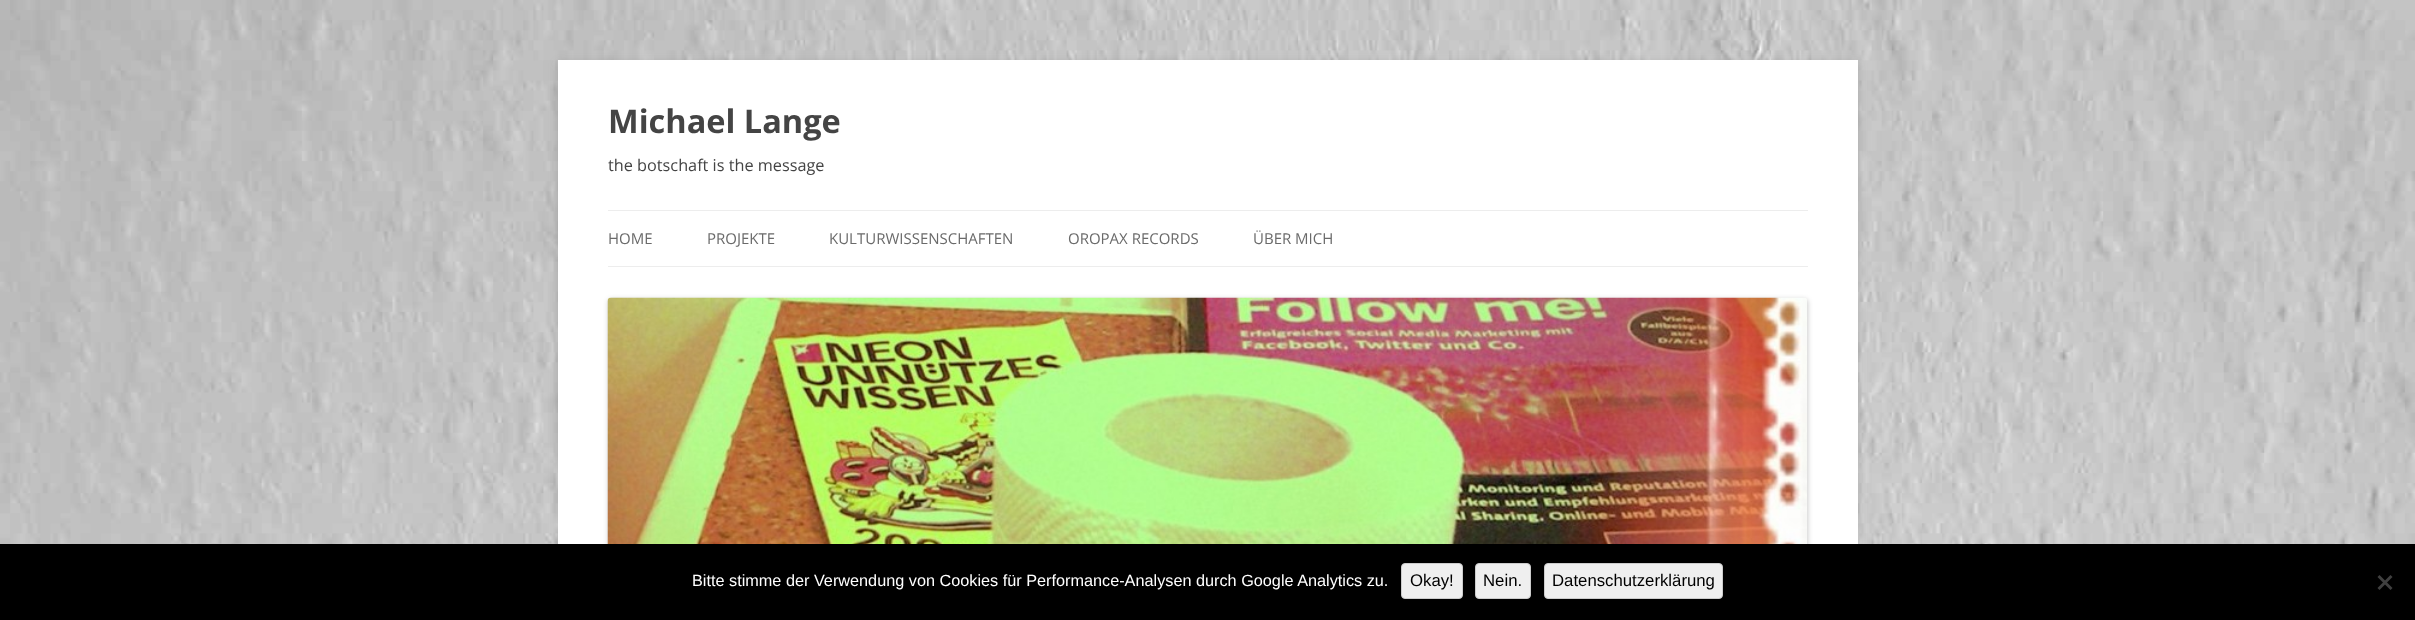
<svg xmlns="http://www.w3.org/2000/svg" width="2415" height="620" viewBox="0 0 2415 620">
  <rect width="100%" height="100%" fill="rgb(255,255,255)"/>
  <image x="0" y="0" width="2415" height="544" href="pic1.png"/>
  <rect x="558" y="63" width="1300" height="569" fill="rgba(100,100,100,0.3)" filter="blur(4px)"/>
  <rect x="558" y="60" width="1300" height="484" fill="rgb(255,255,255)"/>
  <text x="608" y="133" font-family="Open Sans" font-size="32.5" font-weight="bold" fill="rgb(68,68,68)">Michael Lange</text>
  <text x="608" y="171" font-family="Open Sans" font-size="16.25" fill="rgb(68,68,68)">the botschaft is the message</text>
  <rect x="608" y="210" width="1200" height="1" fill="rgb(237,237,237)"/>
  <rect x="608" y="266" width="1200" height="1" fill="rgb(237,237,237)"/>
  <g font-family="Open Sans" font-size="15" fill="rgb(106,106,106)">
    <text x="608" y="244">HOME</text>
    <text x="707" y="244">PROJEKTE</text>
    <text x="829" y="244">KULTURWISSENSCHAFTEN</text>
    <text x="1068" y="244">OROPAX RECORDS</text>
    <text x="1253" y="244">ÜBER MICH</text>
  </g>
  <rect x="608" y="299" width="1200" height="321" rx="4" fill="rgba(0,0,0,0.2)" filter="blur(2.5px)"/>
  <image x="607" y="297" width="1200" height="247" href="pic2.png"/>
  <rect x="0" y="544" width="2415" height="76" fill="rgb(0,0,0)"/>
  <text x="692" y="586" font-family="Liberation Sans" font-size="16.25" fill="rgb(255,255,255)">Bitte stimme der Verwendung von Cookies für Performance-Analysen durch Google Analytics zu.</text>
  <rect x="1401.5" y="563.5" width="61" height="35" rx="3.5" fill="rgb(239,239,239)" stroke="rgb(204,204,204)"/>
  <text x="1410" y="586" font-family="Liberation Sans" font-size="16.75" fill="rgb(0,0,0)">Okay!</text>
  <rect x="1475.5" y="563.5" width="55" height="35" rx="3.5" fill="rgb(239,239,239)" stroke="rgb(204,204,204)"/>
  <text x="1483" y="586" font-family="Liberation Sans" font-size="16.75" fill="rgb(0,0,0)">Nein.</text>
  <rect x="1544.5" y="563.5" width="178" height="35" rx="3.5" fill="rgb(239,239,239)" stroke="rgb(204,204,204)"/>
  <text x="1552" y="586" font-family="Liberation Sans" font-size="16.75" fill="rgb(0,0,0)">Datenschutzerklärung</text>
  <path d="M2390.5 575L2392.5 577L2379.5 590L2377.5 588Z" fill="rgb(64,64,64)"/>
  <path d="M2377.5 577L2379.5 575L2392.5 588L2390.5 590Z" fill="rgb(64,64,64)"/>
</svg>
